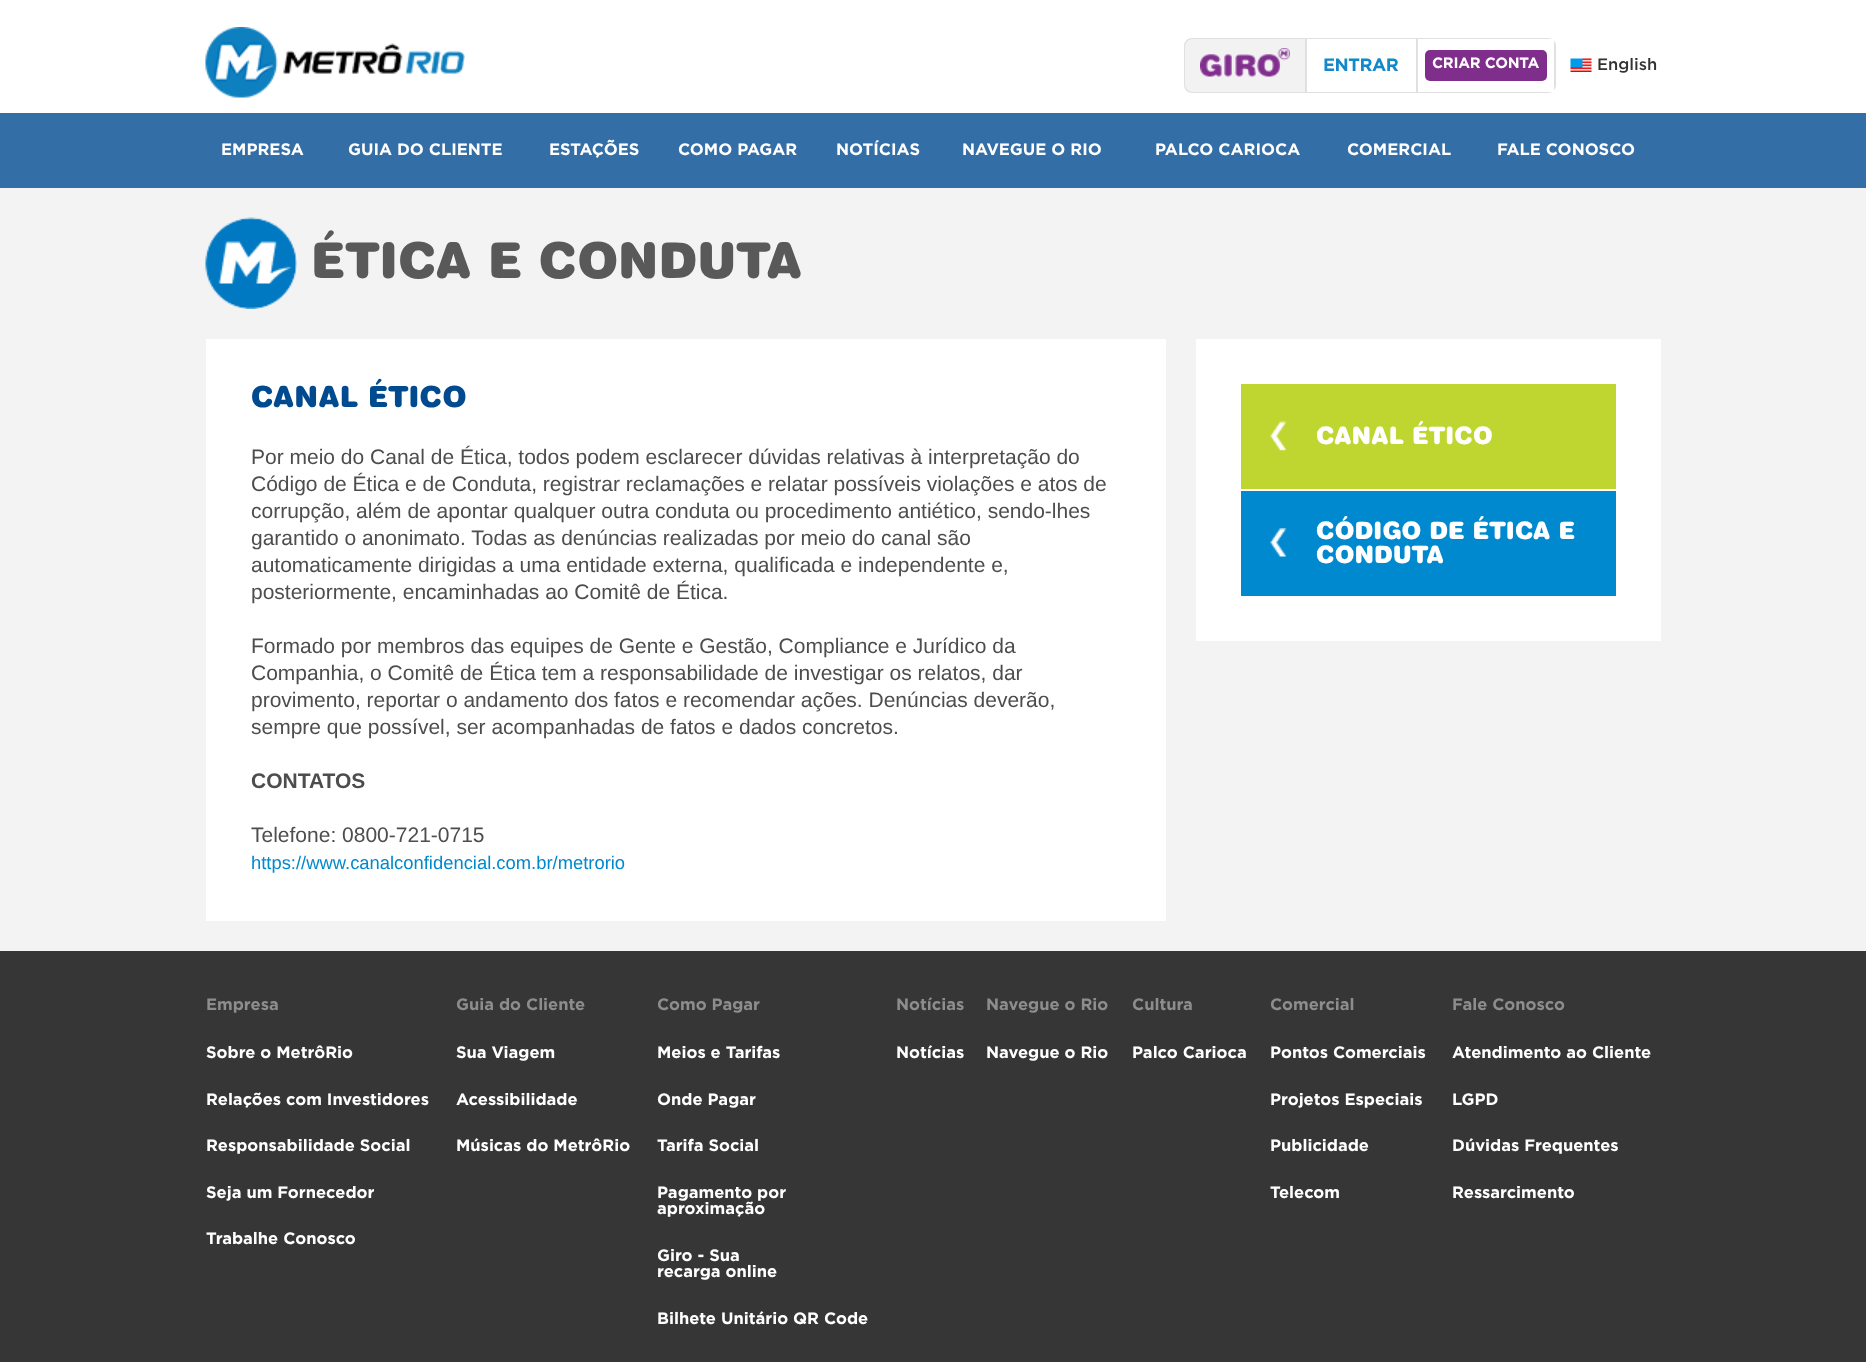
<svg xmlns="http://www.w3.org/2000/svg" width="1866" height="1362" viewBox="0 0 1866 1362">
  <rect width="100%" height="100%" fill="rgb(243,243,243)"/>
  <rect x="0" y="0" width="1866" height="113" fill="rgb(255,255,255)"/>
  <image x="205" y="27" width="260" height="71" href="pic1.png"/>
  <rect x="1185" y="39" width="370" height="53" rx="7" fill="none" stroke="rgb(224,224,224)" stroke-width="2"/>
  <path d="M1193 39H1305V92H1193C1188.5 92 1185 88.5 1185 84V47C1185 42.5 1188.5 39 1193 39Z" fill="rgb(242,242,242)"/>
  <image x="1200" y="48" width="90" height="29" href="pic2.png"/>
  <rect x="1307" y="39" width="109" height="53" fill="rgb(255,255,255)"/>
  <rect x="1416" y="39" width="2" height="53" fill="rgb(224,224,224)"/>
  <rect x="1305" y="39" width="2" height="53" fill="rgb(224,224,224)"/>
  <text x="1323" y="71" font-family="Gotham" font-size="18" font-weight="bold" letter-spacing="-0.5" fill="rgb(19,136,202)">ENTRAR</text>
  <rect x="1418" y="39" width="136" height="53" fill="rgb(255,255,255)"/>
  <rect x="1425" y="50" width="122" height="31" rx="5" fill="rgb(127,46,140)"/>
  <text x="1432" y="68" font-family="Gotham" font-size="15" font-weight="bold" letter-spacing="-0.25" fill="rgb(255,255,255)">CRIAR CONTA</text>
  <image x="1570" y="58" width="22" height="14" href="pic3.png"/>
  <text x="1597" y="70" font-family="Gotham" font-size="16.5" font-weight="500" fill="rgb(51,51,51)">English</text>
  <rect x="0" y="113" width="1866" height="75" fill="rgb(51,110,166)"/>
  <g font-family="Gotham" font-size="16.5" font-weight="bold" fill="rgb(255,255,255)">
    <text x="221" y="155">EMPRESA</text>
    <text x="348" y="155">GUIA DO CLIENTE</text>
    <text x="549" y="155">ESTAÇÕES</text>
    <text x="678" y="155">COMO PAGAR</text>
    <text x="836" y="155">NOTÍCIAS</text>
    <text x="962" y="155">NAVEGUE O RIO</text>
    <text x="1155" y="155">PALCO CARIOCA</text>
    <text x="1347" y="155">COMERCIAL</text>
    <text x="1497" y="155">FALE CONOSCO</text>
  </g>
  <image x="205" y="217" width="92" height="92" href="pic4.png"/>
  <text x="311" y="278" font-family="'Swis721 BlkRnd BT'" font-size="49.5" font-weight="900" fill="rgb(89,89,89)">ÉTICA E CONDUTA</text>
  <rect x="206" y="339" width="960" height="582" fill="rgb(255,255,255)"/>
  <text x="251" y="407" font-family="'Swis721 BlkRnd BT'" font-size="29.25" font-weight="900" fill="rgb(0,74,143)">CANAL ÉTICO</text>
  <g font-family="Liberation Sans" font-size="21" fill="rgb(77,77,77)">
    <text>
      <tspan x="251" y="464">Por meio do Canal de Ética, todos podem esclarecer dúvidas relativas à interpretação do</tspan>
      <tspan x="251" y="491">Código de Ética e de Conduta, registrar reclamações e relatar possíveis violações e atos de</tspan>
      <tspan x="251" y="518">corrupção, além de apontar qualquer outra conduta ou procedimento antiético, sendo-lhes</tspan>
      <tspan x="251" y="545">garantido o anonimato. Todas as denúncias realizadas por meio do canal são</tspan>
      <tspan x="251" y="572">automaticamente dirigidas a uma entidade externa, qualificada e independente e,</tspan>
      <tspan x="251" y="599">posteriormente, encaminhadas ao Comitê de Ética.</tspan>
    </text>
    <text>
      <tspan x="251" y="653">Formado por membros das equipes de Gente e Gestão, Compliance e Jurídico da</tspan>
      <tspan x="251" y="680">Companhia, o Comitê de Ética tem a responsabilidade de investigar os relatos, dar</tspan>
      <tspan x="251" y="707">provimento, reportar o andamento dos fatos e recomendar ações. Denúncias deverão,</tspan>
      <tspan x="251" y="734">sempre que possível, ser acompanhadas de fatos e dados concretos.</tspan>
    </text>
  </g>
  <text x="251" y="788" font-family="Liberation Sans" font-size="21" font-weight="bold" fill="rgb(77,77,77)">CONTATOS</text>
  <text x="251" y="842" font-family="Liberation Sans" font-size="21" fill="rgb(77,77,77)">Telefone: 0800-721-0715</text>
  <text x="251" y="869" font-family="Liberation Sans" font-size="18.4" fill="rgb(0,137,207)">https://www.canalconfidencial.com.br/metrorio</text>
  <rect x="1196" y="339" width="465" height="302" fill="rgb(255,255,255)"/>
  <rect x="1241" y="384" width="375" height="105" fill="rgb(191,214,48)"/>
  <image x="1270" y="421" width="17" height="30" href="pic5.png"/>
  <text x="1316" y="444" font-family="'Swis721 BlkRnd BT'" font-size="24" font-weight="900" fill="rgb(255,255,255)">CANAL ÉTICO</text>
  <rect x="1241" y="491" width="375" height="105" fill="rgb(0,137,207)"/>
  <image x="1270" y="528" width="17" height="29" href="pic6.png"/>
  <g font-family="'Swis721 BlkRnd BT'" font-size="24" font-weight="900" fill="rgb(255,255,255)">
    <text>
      <tspan x="1316" y="539">CÓDIGO DE ÉTICA E</tspan>
      <tspan x="1316" y="563">CONDUTA</tspan>
    </text>
  </g>
  <rect x="0" y="951" width="1866" height="411" fill="rgb(54,54,54)"/>
  <text x="206" y="1010" font-family="Gotham" font-size="16.5" font-weight="bold" fill="rgb(141,141,141)">Empresa</text>
  <g font-family="Gotham" font-size="16.5" font-weight="bold" fill="rgb(255,255,255)">
    <text x="206" y="1058">Sobre o MetrôRio</text>
    <text x="206" y="1105">Relações com Investidores</text>
    <text x="206" y="1151">Responsabilidade Social</text>
    <text x="206" y="1198">Seja um Fornecedor</text>
    <text x="206" y="1244">Trabalhe Conosco</text>
  </g>
  <text x="456" y="1010" font-family="Gotham" font-size="16.5" font-weight="bold" fill="rgb(141,141,141)">Guia do Cliente</text>
  <g font-family="Gotham" font-size="16.5" font-weight="bold" fill="rgb(255,255,255)">
    <text x="456" y="1058">Sua Viagem</text>
    <text x="456" y="1105">Acessibilidade</text>
    <text x="456" y="1151">Músicas do MetrôRio</text>
  </g>
  <text x="657" y="1010" font-family="Gotham" font-size="16.5" font-weight="bold" fill="rgb(141,141,141)">Como Pagar</text>
  <g font-family="Gotham" font-size="16.5" font-weight="bold" fill="rgb(255,255,255)">
    <text x="657" y="1058">Meios e Tarifas</text>
    <text x="657" y="1105">Onde Pagar</text>
    <text x="657" y="1151">Tarifa Social</text>
    <text>
      <tspan x="657" y="1198">Pagamento por</tspan>
      <tspan x="657" y="1214">aproximação</tspan>
    </text>
    <text>
      <tspan x="657" y="1261">Giro - Sua</tspan>
      <tspan x="657" y="1277">recarga online</tspan>
    </text>
    <text x="657" y="1324">Bilhete Unitário QR Code</text>
  </g>
  <text x="896" y="1010" font-family="Gotham" font-size="16.5" font-weight="bold" fill="rgb(141,141,141)">Notícias</text>
  <text x="896" y="1058" font-family="Gotham" font-size="16.5" font-weight="bold" fill="rgb(255,255,255)">Notícias</text>
  <text x="986" y="1010" font-family="Gotham" font-size="16.5" font-weight="bold" fill="rgb(141,141,141)">Navegue o Rio</text>
  <text x="986" y="1058" font-family="Gotham" font-size="16.5" font-weight="bold" fill="rgb(255,255,255)">Navegue o Rio</text>
  <text x="1132" y="1010" font-family="Gotham" font-size="16.5" font-weight="bold" fill="rgb(141,141,141)">Cultura</text>
  <text x="1132" y="1058" font-family="Gotham" font-size="16.5" font-weight="bold" fill="rgb(255,255,255)">Palco Carioca</text>
  <text x="1270" y="1010" font-family="Gotham" font-size="16.5" font-weight="bold" fill="rgb(141,141,141)">Comercial</text>
  <g font-family="Gotham" font-size="16.5" font-weight="bold" fill="rgb(255,255,255)">
    <text x="1270" y="1058">Pontos Comerciais</text>
    <text x="1270" y="1105">Projetos Especiais</text>
    <text x="1270" y="1151">Publicidade</text>
    <text x="1270" y="1198">Telecom</text>
  </g>
  <text x="1452" y="1010" font-family="Gotham" font-size="16.5" font-weight="bold" fill="rgb(141,141,141)">Fale Conosco</text>
  <g font-family="Gotham" font-size="16.5" font-weight="bold" fill="rgb(255,255,255)">
    <text x="1452" y="1058">Atendimento ao Cliente</text>
    <text x="1452" y="1105">LGPD</text>
    <text x="1452" y="1151">Dúvidas Frequentes</text>
    <text x="1452" y="1198">Ressarcimento</text>
  </g>
</svg>
